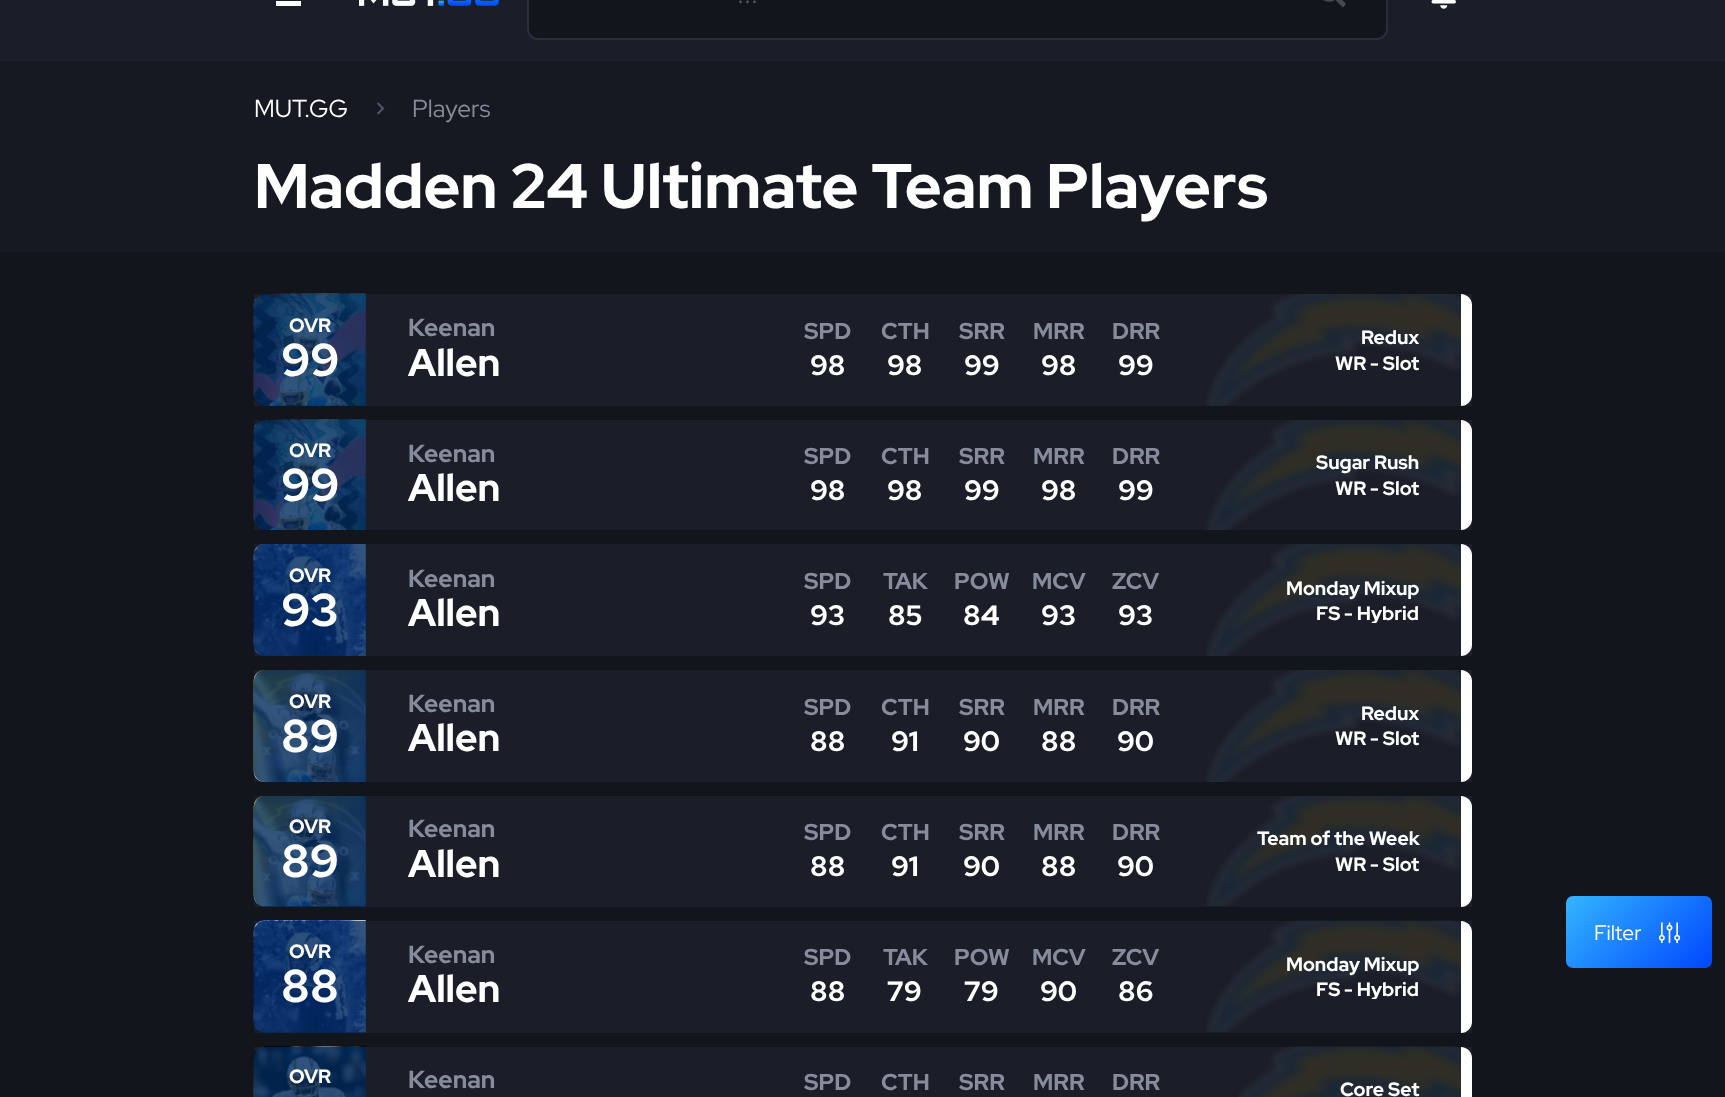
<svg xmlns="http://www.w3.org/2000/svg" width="1725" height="1097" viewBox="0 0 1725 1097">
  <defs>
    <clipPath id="clip1"><rect x="1192" y="602" width="227" height="21"/></clipPath>
    <clipPath id="clip2"><rect x="1192" y="978" width="227" height="21"/></clipPath>
    <linearGradient id="g1" gradientUnits="userSpaceOnUse" x1="1585" y1="878" x2="1693" y2="986"><stop offset="0" stop-color="rgb(51,181,255)"/><stop offset="1" stop-color="rgb(0,71,255)"/></linearGradient>
  </defs>
  <rect width="100%" height="100%" fill="rgb(19,21,29)"/>
  <rect x="0" y="0" width="1725" height="61" fill="rgb(27,30,41)"/>
  <rect x="276" y="1" width="25" height="5" fill="rgb(255,255,255)"/>
  <image x="359" y="0" width="140" height="6" href="pic1.png"/>
  <rect x="528" y="-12" width="859" height="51" rx="10" fill="rgb(19,21,29)" stroke="rgb(41,45,62)" stroke-width="2"/>
  <text x="737" y="3" font-family="Red Hat Display" font-size="28" fill="rgb(79,84,101)">...</text>
  <image x="1323" y="0" width="23" height="7" href="pic2.png"/>
  <image x="1431" y="0" width="25" height="9" href="pic3.png"/>
  <rect x="0" y="61" width="1725" height="191" fill="rgb(23,25,34)"/>
  <text x="254" y="117" font-family="Red Hat Display" font-size="24.5" fill="rgb(255,255,255)">MUT.GG</text>
  <image x="377" y="102" width="8" height="13" href="pic4.png"/>
  <text x="412" y="117" font-family="Red Hat Display" font-size="24.5" fill="rgb(135,140,156)">Players</text>
  <text x="254" y="208" font-family="Red Hat Display" font-size="63" font-weight="bold" fill="rgb(255,255,255)">Madden 24 Ultimate Team Players</text>
  <rect x="254" y="294" width="1218" height="112" fill="rgb(27,30,41)"/>
  <image x="253" y="293" width="113" height="113" href="pic5.png"/>
  <path d="M265 294H366V406H265C259 406 254 401 254 395V305C254 299 259 294 265 294Z" fill="rgba(0,42,94,0.8)"/>
  <text x="289" y="332" font-family="Red Hat Display" font-size="19.25" font-weight="bold" fill="rgb(255,255,255)">OVR</text>
  <text x="281" y="376" font-family="Red Hat Display" font-size="46" font-weight="bold" fill="rgb(255,255,255)">99</text>
  <text x="408" y="336" font-family="Red Hat Display" font-size="24.5" font-weight="bold" fill="rgb(135,140,156)">Keenan</text>
  <text x="408" y="376" font-family="Red Hat Display" font-size="38.5" font-weight="bold" fill="rgb(255,255,255)">Allen</text>
  <text x="804" y="339" font-family="Red Hat Display" font-size="23" font-weight="bold" fill="rgb(135,140,156)">SPD</text>
  <text x="810" y="375" font-family="Red Hat Display" font-size="28" font-weight="bold" fill="rgb(255,255,255)">98</text>
  <text x="881" y="339" font-family="Red Hat Display" font-size="23" font-weight="bold" fill="rgb(135,140,156)">CTH</text>
  <text x="887" y="375" font-family="Red Hat Display" font-size="28" font-weight="bold" fill="rgb(255,255,255)">98</text>
  <text x="959" y="339" font-family="Red Hat Display" font-size="23" font-weight="bold" fill="rgb(135,140,156)">SRR</text>
  <text x="964" y="375" font-family="Red Hat Display" font-size="28" font-weight="bold" fill="rgb(255,255,255)">99</text>
  <text x="1033" y="339" font-family="Red Hat Display" font-size="23" font-weight="bold" fill="rgb(135,140,156)">MRR</text>
  <text x="1041" y="375" font-family="Red Hat Display" font-size="28" font-weight="bold" fill="rgb(255,255,255)">98</text>
  <text x="1112" y="339" font-family="Red Hat Display" font-size="23" font-weight="bold" fill="rgb(135,140,156)">DRR</text>
  <text x="1118" y="375" font-family="Red Hat Display" font-size="28" font-weight="bold" fill="rgb(255,255,255)">99</text>
  <image x="1206" y="294" width="255" height="112" href="pic6.png"/>
  <g font-family="Red Hat Display" font-size="19.25" font-weight="bold" fill="rgb(255,255,255)">
    <text x="1361" y="344">Redux</text>
    <text x="1335" y="370">WR - Slot</text>
  </g>
  <path d="M1461 294C1467 294 1472 299 1472 305V395C1472 401 1467 406 1461 406Z" fill="rgb(255,255,255)"/>
  <rect x="254" y="420" width="1218" height="110" fill="rgb(27,30,41)"/>
  <image x="253" y="419" width="113" height="111" href="pic7.png"/>
  <path d="M265 420H366V530H265C259 530 254 525 254 519V431C254 425 259 420 265 420Z" fill="rgba(0,42,94,0.8)"/>
  <text x="289" y="457" font-family="Red Hat Display" font-size="19.25" font-weight="bold" fill="rgb(255,255,255)">OVR</text>
  <text x="281" y="501" font-family="Red Hat Display" font-size="46" font-weight="bold" fill="rgb(255,255,255)">99</text>
  <text x="408" y="462" font-family="Red Hat Display" font-size="24.5" font-weight="bold" fill="rgb(135,140,156)">Keenan</text>
  <text x="408" y="501" font-family="Red Hat Display" font-size="38.5" font-weight="bold" fill="rgb(255,255,255)">Allen</text>
  <text x="804" y="464" font-family="Red Hat Display" font-size="23" font-weight="bold" fill="rgb(135,140,156)">SPD</text>
  <text x="810" y="500" font-family="Red Hat Display" font-size="28" font-weight="bold" fill="rgb(255,255,255)">98</text>
  <text x="881" y="464" font-family="Red Hat Display" font-size="23" font-weight="bold" fill="rgb(135,140,156)">CTH</text>
  <text x="887" y="500" font-family="Red Hat Display" font-size="28" font-weight="bold" fill="rgb(255,255,255)">98</text>
  <text x="959" y="464" font-family="Red Hat Display" font-size="23" font-weight="bold" fill="rgb(135,140,156)">SRR</text>
  <text x="964" y="500" font-family="Red Hat Display" font-size="28" font-weight="bold" fill="rgb(255,255,255)">99</text>
  <text x="1033" y="464" font-family="Red Hat Display" font-size="23" font-weight="bold" fill="rgb(135,140,156)">MRR</text>
  <text x="1041" y="500" font-family="Red Hat Display" font-size="28" font-weight="bold" fill="rgb(255,255,255)">98</text>
  <text x="1112" y="464" font-family="Red Hat Display" font-size="23" font-weight="bold" fill="rgb(135,140,156)">DRR</text>
  <text x="1118" y="500" font-family="Red Hat Display" font-size="28" font-weight="bold" fill="rgb(255,255,255)">99</text>
  <image x="1206" y="420" width="255" height="110" href="pic8.png"/>
  <g font-family="Red Hat Display" font-size="19.25" font-weight="bold" fill="rgb(255,255,255)">
    <text x="1316" y="469">Sugar Rush</text>
    <text x="1335" y="495">WR - Slot</text>
  </g>
  <path d="M1461 420C1467 420 1472 425 1472 431V519C1472 525 1467 530 1461 530Z" fill="rgb(255,255,255)"/>
  <rect x="254" y="544" width="1218" height="112" fill="rgb(27,30,41)"/>
  <image x="253" y="544" width="113" height="112" href="pic9.png"/>
  <path d="M265 544H366V656H265C259 656 254 651 254 645V555C254 549 259 544 265 544Z" fill="rgba(0,42,94,0.8)"/>
  <text x="289" y="582" font-family="Red Hat Display" font-size="19.25" font-weight="bold" fill="rgb(255,255,255)">OVR</text>
  <text x="281" y="626" font-family="Red Hat Display" font-size="46" font-weight="bold" fill="rgb(255,255,255)">93</text>
  <text x="408" y="587" font-family="Red Hat Display" font-size="24.5" font-weight="bold" fill="rgb(135,140,156)">Keenan</text>
  <text x="408" y="626" font-family="Red Hat Display" font-size="38.5" font-weight="bold" fill="rgb(255,255,255)">Allen</text>
  <text x="804" y="589" font-family="Red Hat Display" font-size="23" font-weight="bold" fill="rgb(135,140,156)">SPD</text>
  <text x="810" y="625" font-family="Red Hat Display" font-size="28" font-weight="bold" fill="rgb(255,255,255)">93</text>
  <text x="883" y="589" font-family="Red Hat Display" font-size="23" font-weight="bold" fill="rgb(135,140,156)">TAK</text>
  <text x="888" y="625" font-family="Red Hat Display" font-size="28" font-weight="bold" fill="rgb(255,255,255)">85</text>
  <text x="954" y="589" font-family="Red Hat Display" font-size="23" font-weight="bold" fill="rgb(135,140,156)">POW</text>
  <text x="963" y="625" font-family="Red Hat Display" font-size="28" font-weight="bold" fill="rgb(255,255,255)">84</text>
  <text x="1032" y="589" font-family="Red Hat Display" font-size="23" font-weight="bold" fill="rgb(135,140,156)">MCV</text>
  <text x="1041" y="625" font-family="Red Hat Display" font-size="28" font-weight="bold" fill="rgb(255,255,255)">93</text>
  <text x="1112" y="589" font-family="Red Hat Display" font-size="23" font-weight="bold" fill="rgb(135,140,156)">ZCV</text>
  <text x="1118" y="625" font-family="Red Hat Display" font-size="28" font-weight="bold" fill="rgb(255,255,255)">93</text>
  <image x="1206" y="544" width="255" height="112" href="pic10.png"/>
  <g font-family="Red Hat Display" font-size="19.25" font-weight="bold" fill="rgb(255,255,255)">
    <text x="1286" y="595">Monday Mixup</text>
    <text x="1316" y="620">FS</text>
  </g>
  <g clip-path="url(#clip1)">
    <text x="1344" y="620" font-family="Red Hat Display" font-size="19.25" font-weight="bold" fill="rgb(255,255,255)">- Hybrid</text>
  </g>
  <path d="M1461 544C1467 544 1472 549 1472 555V645C1472 651 1467 656 1461 656Z" fill="rgb(255,255,255)"/>
  <rect x="254" y="670" width="1218" height="112" fill="rgb(27,30,41)"/>
  <image x="253" y="670" width="113" height="112" href="pic11.png"/>
  <path d="M265 670H366V782H265C259 782 254 777 254 771V681C254 675 259 670 265 670Z" fill="rgba(0,42,94,0.8)"/>
  <text x="289" y="708" font-family="Red Hat Display" font-size="19.25" font-weight="bold" fill="rgb(255,255,255)">OVR</text>
  <text x="281" y="752" font-family="Red Hat Display" font-size="46" font-weight="bold" fill="rgb(255,255,255)">89</text>
  <text x="408" y="712" font-family="Red Hat Display" font-size="24.5" font-weight="bold" fill="rgb(135,140,156)">Keenan</text>
  <text x="408" y="751" font-family="Red Hat Display" font-size="38.5" font-weight="bold" fill="rgb(255,255,255)">Allen</text>
  <text x="804" y="715" font-family="Red Hat Display" font-size="23" font-weight="bold" fill="rgb(135,140,156)">SPD</text>
  <text x="810" y="751" font-family="Red Hat Display" font-size="28" font-weight="bold" fill="rgb(255,255,255)">88</text>
  <text x="881" y="715" font-family="Red Hat Display" font-size="23" font-weight="bold" fill="rgb(135,140,156)">CTH</text>
  <text x="891" y="751" font-family="Red Hat Display" font-size="28" font-weight="bold" fill="rgb(255,255,255)">91</text>
  <text x="959" y="715" font-family="Red Hat Display" font-size="23" font-weight="bold" fill="rgb(135,140,156)">SRR</text>
  <text x="963" y="751" font-family="Red Hat Display" font-size="28" font-weight="bold" fill="rgb(255,255,255)">90</text>
  <text x="1033" y="715" font-family="Red Hat Display" font-size="23" font-weight="bold" fill="rgb(135,140,156)">MRR</text>
  <text x="1041" y="751" font-family="Red Hat Display" font-size="28" font-weight="bold" fill="rgb(255,255,255)">88</text>
  <text x="1112" y="715" font-family="Red Hat Display" font-size="23" font-weight="bold" fill="rgb(135,140,156)">DRR</text>
  <text x="1117" y="751" font-family="Red Hat Display" font-size="28" font-weight="bold" fill="rgb(255,255,255)">90</text>
  <image x="1206" y="670" width="255" height="112" href="pic12.png"/>
  <g font-family="Red Hat Display" font-size="19.25" font-weight="bold" fill="rgb(255,255,255)">
    <text x="1361" y="720">Redux</text>
    <text x="1335" y="745">WR - Slot</text>
  </g>
  <path d="M1461 670C1467 670 1472 675 1472 681V771C1472 777 1467 782 1461 782Z" fill="rgb(255,255,255)"/>
  <rect x="254" y="796" width="1218" height="111" fill="rgb(27,30,41)"/>
  <image x="253" y="796" width="113" height="111" href="pic13.png"/>
  <path d="M265 796H366V907H265C259 907 254 902 254 896V807C254 801 259 796 265 796Z" fill="rgba(0,42,94,0.8)"/>
  <text x="289" y="833" font-family="Red Hat Display" font-size="19.25" font-weight="bold" fill="rgb(255,255,255)">OVR</text>
  <text x="281" y="877" font-family="Red Hat Display" font-size="46" font-weight="bold" fill="rgb(255,255,255)">89</text>
  <text x="408" y="837" font-family="Red Hat Display" font-size="24.5" font-weight="bold" fill="rgb(135,140,156)">Keenan</text>
  <text x="408" y="877" font-family="Red Hat Display" font-size="38.5" font-weight="bold" fill="rgb(255,255,255)">Allen</text>
  <text x="804" y="840" font-family="Red Hat Display" font-size="23" font-weight="bold" fill="rgb(135,140,156)">SPD</text>
  <text x="810" y="876" font-family="Red Hat Display" font-size="28" font-weight="bold" fill="rgb(255,255,255)">88</text>
  <text x="881" y="840" font-family="Red Hat Display" font-size="23" font-weight="bold" fill="rgb(135,140,156)">CTH</text>
  <text x="891" y="876" font-family="Red Hat Display" font-size="28" font-weight="bold" fill="rgb(255,255,255)">91</text>
  <text x="959" y="840" font-family="Red Hat Display" font-size="23" font-weight="bold" fill="rgb(135,140,156)">SRR</text>
  <text x="963" y="876" font-family="Red Hat Display" font-size="28" font-weight="bold" fill="rgb(255,255,255)">90</text>
  <text x="1033" y="840" font-family="Red Hat Display" font-size="23" font-weight="bold" fill="rgb(135,140,156)">MRR</text>
  <text x="1041" y="876" font-family="Red Hat Display" font-size="28" font-weight="bold" fill="rgb(255,255,255)">88</text>
  <text x="1112" y="840" font-family="Red Hat Display" font-size="23" font-weight="bold" fill="rgb(135,140,156)">DRR</text>
  <text x="1117" y="876" font-family="Red Hat Display" font-size="28" font-weight="bold" fill="rgb(255,255,255)">90</text>
  <image x="1206" y="796" width="255" height="110" href="pic14.png"/>
  <g font-family="Red Hat Display" font-size="19.25" font-weight="bold" fill="rgb(255,255,255)">
    <text x="1257" y="845">Team of the Week</text>
    <text x="1335" y="871">WR - Slot</text>
  </g>
  <path d="M1461 796C1467 796 1472 801 1472 807V896C1472 902 1467 907 1461 907Z" fill="rgb(255,255,255)"/>
  <rect x="254" y="921" width="1218" height="112" fill="rgb(27,30,41)"/>
  <image x="253" y="920" width="113" height="113" href="pic15.png"/>
  <path d="M265 921H366V1033H265C259 1033 254 1028 254 1022V932C254 926 259 921 265 921Z" fill="rgba(0,42,94,0.8)"/>
  <text x="289" y="958" font-family="Red Hat Display" font-size="19.25" font-weight="bold" fill="rgb(255,255,255)">OVR</text>
  <text x="281" y="1002" font-family="Red Hat Display" font-size="46" font-weight="bold" fill="rgb(255,255,255)">88</text>
  <text x="408" y="963" font-family="Red Hat Display" font-size="24.5" font-weight="bold" fill="rgb(135,140,156)">Keenan</text>
  <text x="408" y="1002" font-family="Red Hat Display" font-size="38.5" font-weight="bold" fill="rgb(255,255,255)">Allen</text>
  <text x="804" y="965" font-family="Red Hat Display" font-size="23" font-weight="bold" fill="rgb(135,140,156)">SPD</text>
  <text x="810" y="1001" font-family="Red Hat Display" font-size="28" font-weight="bold" fill="rgb(255,255,255)">88</text>
  <text x="883" y="965" font-family="Red Hat Display" font-size="23" font-weight="bold" fill="rgb(135,140,156)">TAK</text>
  <text x="887" y="1001" font-family="Red Hat Display" font-size="28" font-weight="bold" fill="rgb(255,255,255)">79</text>
  <text x="954" y="965" font-family="Red Hat Display" font-size="23" font-weight="bold" fill="rgb(135,140,156)">POW</text>
  <text x="964" y="1001" font-family="Red Hat Display" font-size="28" font-weight="bold" fill="rgb(255,255,255)">79</text>
  <text x="1032" y="965" font-family="Red Hat Display" font-size="23" font-weight="bold" fill="rgb(135,140,156)">MCV</text>
  <text x="1040" y="1001" font-family="Red Hat Display" font-size="28" font-weight="bold" fill="rgb(255,255,255)">90</text>
  <text x="1112" y="965" font-family="Red Hat Display" font-size="23" font-weight="bold" fill="rgb(135,140,156)">ZCV</text>
  <text x="1118" y="1001" font-family="Red Hat Display" font-size="28" font-weight="bold" fill="rgb(255,255,255)">86</text>
  <image x="1206" y="920" width="255" height="112" href="pic16.png"/>
  <g font-family="Red Hat Display" font-size="19.25" font-weight="bold" fill="rgb(255,255,255)">
    <text x="1286" y="971">Monday Mixup</text>
    <text x="1316" y="996">FS</text>
  </g>
  <g clip-path="url(#clip2)">
    <text x="1344" y="996" font-family="Red Hat Display" font-size="19.25" font-weight="bold" fill="rgb(255,255,255)">- Hybrid</text>
  </g>
  <path d="M1461 921C1467 921 1472 926 1472 932V1022C1472 1028 1467 1033 1461 1033Z" fill="rgb(255,255,255)"/>
  <rect x="254" y="1047" width="1218" height="50" fill="rgb(27,30,41)"/>
  <image x="253" y="1046" width="113" height="51" href="pic17.png"/>
  <path d="M265 1047H366V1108H265C259 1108 254 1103 254 1097V1058C254 1052 259 1047 265 1047Z" fill="rgba(0,42,94,0.8)"/>
  <text x="289" y="1083" font-family="Red Hat Display" font-size="19.25" font-weight="bold" fill="rgb(255,255,255)">OVR</text>
  <text x="408" y="1088" font-family="Red Hat Display" font-size="24.5" font-weight="bold" fill="rgb(135,140,156)">Keenan</text>
  <g font-family="Red Hat Display" font-size="23" font-weight="bold" fill="rgb(135,140,156)">
    <text x="804" y="1090">SPD</text>
    <text x="881" y="1090">CTH</text>
    <text x="959" y="1090">SRR</text>
    <text x="1033" y="1090">MRR</text>
    <text x="1112" y="1090">DRR</text>
  </g>
  <image x="1238" y="1046" width="223" height="51" href="pic18.png"/>
  <text x="1340" y="1096" font-family="Red Hat Display" font-size="19.25" font-weight="bold" fill="rgb(255,255,255)">Core Set</text>
  <path d="M1461 1047C1467 1047 1472 1052 1472 1058V1097C1472 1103 1467 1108 1461 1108Z" fill="rgb(255,255,255)"/>
  <rect x="1566" y="896" width="146" height="72" rx="7" fill="url(#g1)"/>
  <text x="1594" y="940" font-family="Red Hat Display" font-size="21" fill="rgb(255,255,255)">Filter</text>
  <image x="1658" y="922" width="23" height="22" href="pic19.png"/>
</svg>
